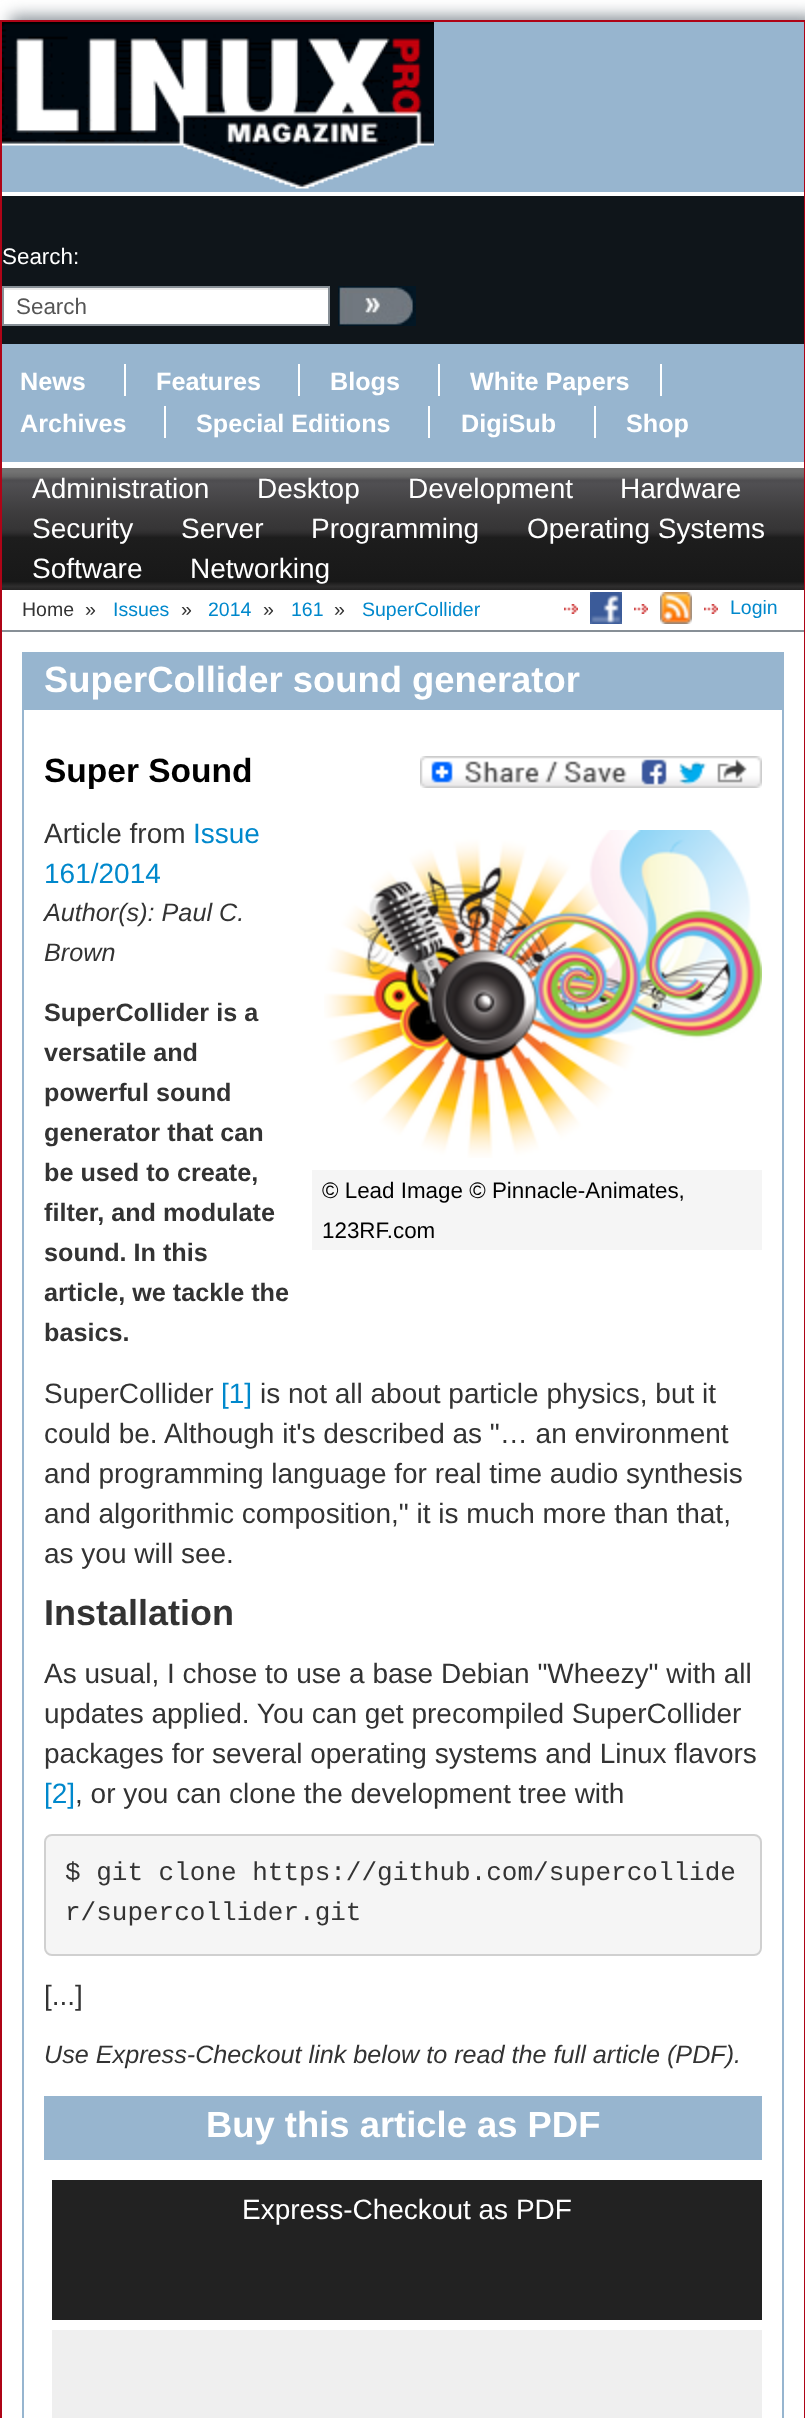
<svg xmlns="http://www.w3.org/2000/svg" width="805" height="2418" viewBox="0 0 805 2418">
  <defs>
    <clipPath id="clip1"><rect x="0" y="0" width="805" height="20"/></clipPath>
    <linearGradient id="g1" gradientUnits="userSpaceOnUse" x1="383" y1="468" x2="383" y2="590"><stop offset="0" stop-color="rgb(115,115,115)"/><stop offset="0.03" stop-color="rgb(115,115,115)"/><stop offset="0.07" stop-color="rgb(103,103,103)"/><stop offset="0.1" stop-color="rgb(77,76,79)"/><stop offset="0.13" stop-color="rgb(80,79,82)"/><stop offset="0.37" stop-color="rgb(61,60,61)"/><stop offset="0.5" stop-color="rgb(54,53,54)"/><stop offset="0.53" stop-color="rgb(47,46,47)"/><stop offset="0.57" stop-color="rgb(29,29,29)"/><stop offset="0.93" stop-color="rgb(24,24,24)"/><stop offset="0.97" stop-color="rgb(47,46,46)"/><stop offset="1" stop-color="rgb(37,36,36)"/></linearGradient>
  </defs>
  <rect width="100%" height="100%" fill="rgb(255,255,255)"/>
  <g clip-path="url(#clip1)">
    <rect x="10" y="16" width="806" height="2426" fill="rgb(135,143,150)" filter="blur(8px)"/>
  </g>
  <rect x="1" y="21" width="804" height="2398" fill="none" stroke="rgb(174,4,23)" stroke-width="2"/>
  <rect x="2" y="196" width="802" height="148" fill="rgb(15,21,26)"/>
  <rect x="2" y="22" width="802" height="170" fill="rgb(151,181,207)"/>
  <image x="2" y="22" width="432" height="167" href="pic1.png"/>
  <text x="2" y="264" font-family="Liberation Sans" font-size="22.4" fill="rgb(255,255,255)">Search:</text>
  <rect x="4" y="290" width="324" height="34" fill="rgb(255,255,255)"/>
  <rect x="4" y="288" width="324" height="2" fill="rgb(236,236,236)"/>
  <rect x="3" y="287" width="326" height="38" fill="none" stroke="rgb(135,143,150)" stroke-width="2"/>
  <text x="16" y="314" font-family="Liberation Sans" font-size="22.4" fill="rgb(85,85,85)">Search</text>
  <image x="338" y="286" width="78" height="40" href="pic2.png"/>
  <rect x="2" y="344" width="802" height="118" fill="rgb(151,181,207)"/>
  <text x="20" y="390" font-family="Liberation Sans" font-size="25.2" font-weight="bold" fill="rgb(255,255,255)">News</text>
  <rect x="124" y="364" width="2" height="32" fill="rgb(255,255,255)"/>
  <text x="156" y="390" font-family="Liberation Sans" font-size="25.2" font-weight="bold" fill="rgb(255,255,255)">Features</text>
  <rect x="298" y="364" width="2" height="32" fill="rgb(255,255,255)"/>
  <text x="330" y="390" font-family="Liberation Sans" font-size="25.2" font-weight="bold" fill="rgb(255,255,255)">Blogs</text>
  <rect x="438" y="364" width="2" height="32" fill="rgb(255,255,255)"/>
  <text x="470" y="390" font-family="Liberation Sans" font-size="25.2" font-weight="bold" fill="rgb(255,255,255)">White Papers</text>
  <rect x="660" y="364" width="2" height="32" fill="rgb(255,255,255)"/>
  <text x="20" y="432" font-family="Liberation Sans" font-size="25.2" font-weight="bold" fill="rgb(255,255,255)">Archives</text>
  <rect x="164" y="406" width="2" height="32" fill="rgb(255,255,255)"/>
  <text x="196" y="432" font-family="Liberation Sans" font-size="25.2" font-weight="bold" fill="rgb(255,255,255)">Special Editions</text>
  <rect x="428" y="406" width="2" height="32" fill="rgb(255,255,255)"/>
  <text x="461" y="432" font-family="Liberation Sans" font-size="25.2" font-weight="bold" fill="rgb(255,255,255)">DigiSub</text>
  <rect x="594" y="406" width="2" height="32" fill="rgb(255,255,255)"/>
  <text x="626" y="432" font-family="Liberation Sans" font-size="25.2" font-weight="bold" fill="rgb(255,255,255)">Shop</text>
  <rect x="2" y="468" width="802" height="122" fill="url(#g1)"/>
  <g font-family="Liberation Sans" font-size="28" fill="rgb(255,255,255)">
    <text x="32" y="498">Administration</text>
    <text x="257" y="498">Desktop</text>
    <text x="408" y="498">Development</text>
    <text x="620" y="498">Hardware</text>
    <text x="32" y="538">Security</text>
    <text x="181" y="538">Server</text>
    <text x="311" y="538">Programming</text>
    <text x="527" y="538">Operating Systems</text>
    <text x="32" y="578">Software</text>
    <text x="190" y="578">Networking</text>
  </g>
  <rect x="2" y="630" width="802" height="2" fill="rgb(135,143,150)"/>
  <g font-family="Liberation Sans" font-size="19.5" fill="rgb(51,51,51)">
    <text x="22" y="616">Home</text>
    <text x="85" y="616">»</text>
  </g>
  <text x="113" y="616" font-family="Liberation Sans" font-size="19.5" fill="rgb(0,136,204)">Issues</text>
  <text x="181" y="616" font-family="Liberation Sans" font-size="19.5" fill="rgb(51,51,51)">»</text>
  <text x="208" y="616" font-family="Liberation Sans" font-size="19.5" fill="rgb(0,136,204)">2014</text>
  <text x="263" y="616" font-family="Liberation Sans" font-size="19.5" fill="rgb(51,51,51)">»</text>
  <text x="291" y="616" font-family="Liberation Sans" font-size="19.5" fill="rgb(0,136,204)">161</text>
  <text x="334" y="616" font-family="Liberation Sans" font-size="19.5" fill="rgb(51,51,51)">»</text>
  <text x="362" y="616" font-family="Liberation Sans" font-size="19.5" fill="rgb(0,136,204)">SuperCollider</text>
  <image x="564" y="604" width="14" height="10" href="pic3.png"/>
  <image x="590" y="592" width="32" height="32" href="pic4.png"/>
  <image x="634" y="604" width="14" height="10" href="pic3.png"/>
  <image x="660" y="592" width="32" height="32" href="pic5.png"/>
  <image x="704" y="604" width="14" height="10" href="pic3.png"/>
  <text x="730" y="614" font-family="Liberation Sans" font-size="19.5" fill="rgb(0,136,204)">Login</text>
  <rect x="23" y="653" width="760" height="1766" fill="none" stroke="rgb(151,181,207)" stroke-width="2"/>
  <rect x="24" y="654" width="758" height="56" fill="rgb(151,181,207)"/>
  <text x="44" y="692" font-family="Liberation Sans" font-size="36.4" font-weight="bold" fill="rgb(255,255,255)">SuperCollider sound generator</text>
  <text x="44" y="782" font-family="Liberation Sans" font-size="33.5" font-weight="bold" fill="rgb(0,0,0)">Super Sound</text>
  <image x="420" y="756" width="342" height="32" href="pic6.png"/>
  <text x="44" y="843" font-family="Liberation Sans" font-size="28" fill="rgb(51,51,51)">Article from</text>
  <g font-family="Liberation Sans" font-size="28" fill="rgb(0,136,204)">
    <text x="193" y="843">Issue</text>
    <text x="44" y="883">161/2014</text>
  </g>
  <g font-family="Liberation Sans" font-size="25.2" font-style="italic" fill="rgb(51,51,51)">
    <text>
      <tspan x="44" y="921">Author(s): Paul C.</tspan>
      <tspan x="44" y="961">Brown</tspan>
    </text>
  </g>
  <g font-family="Liberation Sans" font-size="25.2" font-weight="bold" fill="rgb(51,51,51)">
    <text>
      <tspan x="44" y="1021">SuperCollider is a</tspan>
      <tspan x="44" y="1061">versatile and</tspan>
      <tspan x="44" y="1101">powerful sound</tspan>
      <tspan x="44" y="1141">generator that can</tspan>
      <tspan x="44" y="1181">be used to create,</tspan>
      <tspan x="44" y="1221">filter, and modulate</tspan>
      <tspan x="44" y="1261">sound. In this</tspan>
      <tspan x="44" y="1301">article, we tackle the</tspan>
      <tspan x="44" y="1341">basics.</tspan>
    </text>
  </g>
  <image x="324" y="830" width="438" height="328" href="pic7.png"/>
  <rect x="312" y="1170" width="450" height="80" fill="rgb(245,245,245)"/>
  <g font-family="Liberation Sans" font-size="22.4" fill="rgb(0,0,0)">
    <text>
      <tspan x="322" y="1198">© Lead Image © Pinnacle-Animates,</tspan>
      <tspan x="322" y="1238">123RF.com</tspan>
    </text>
  </g>
  <text x="44" y="1403" font-family="Liberation Sans" font-size="28" fill="rgb(51,51,51)">SuperCollider</text>
  <text x="221" y="1403" font-family="Liberation Sans" font-size="28" fill="rgb(0,136,204)">[1]</text>
  <g font-family="Liberation Sans" font-size="28" fill="rgb(51,51,51)">
    <text x="260" y="1403">is not all about particle physics, but it</text>
    <text>
      <tspan x="44" y="1443">could be. Although it's described as "… an environment</tspan>
      <tspan x="44" y="1483">and programming language for real time audio synthesis</tspan>
      <tspan x="44" y="1523">and algorithmic composition," it is much more than that,</tspan>
      <tspan x="44" y="1563">as you will see.</tspan>
    </text>
  </g>
  <text x="44" y="1625" font-family="Liberation Sans" font-size="36" font-weight="bold" fill="rgb(51,51,51)">Installation</text>
  <g font-family="Liberation Sans" font-size="28" fill="rgb(51,51,51)">
    <text>
      <tspan x="44" y="1683">As usual, I chose to use a base Debian "Wheezy" with all</tspan>
      <tspan x="44" y="1723">updates applied. You can get precompiled SuperCollider</tspan>
      <tspan x="44" y="1763">packages for several operating systems and Linux flavors</tspan>
    </text>
  </g>
  <text x="44" y="1803" font-family="Liberation Sans" font-size="28" fill="rgb(0,136,204)">[2]</text>
  <text x="75" y="1803" font-family="Liberation Sans" font-size="28" fill="rgb(51,51,51)">, or you can clone the development tree with</text>
  <rect x="44" y="1834" width="718" height="122" rx="8" fill="rgb(245,245,245)"/>
  <rect x="45" y="1835" width="716" height="120" rx="7" fill="none" stroke="rgba(0,0,0,0.15)" stroke-width="2"/>
  <g font-family="Liberation Mono" font-size="26" fill="rgb(51,51,51)">
    <text>
      <tspan x="65" y="1880">$ git clone https://github.com/supercollide</tspan>
      <tspan x="65" y="1920">r/supercollider.git</tspan>
    </text>
  </g>
  <text x="44" y="2005" font-family="Liberation Sans" font-size="28" fill="rgb(51,51,51)">[...]</text>
  <text x="44" y="2063" font-family="Liberation Sans" font-size="25.2" font-style="italic" fill="rgb(51,51,51)">Use Express-Checkout link below to read the full article (PDF).</text>
  <rect x="44" y="2096" width="718" height="64" fill="rgb(151,181,207)"/>
  <text x="206" y="2137" font-family="Liberation Sans" font-size="36.4" font-weight="bold" fill="rgb(255,255,255)">Buy this article as PDF</text>
  <rect x="52" y="2180" width="710" height="140" fill="rgb(34,34,34)"/>
  <text x="242" y="2219" font-family="Liberation Sans" font-size="28" fill="rgb(255,255,255)">Express-Checkout as PDF</text>
  <rect x="52" y="2330" width="710" height="88" fill="rgb(239,239,239)"/>
</svg>
